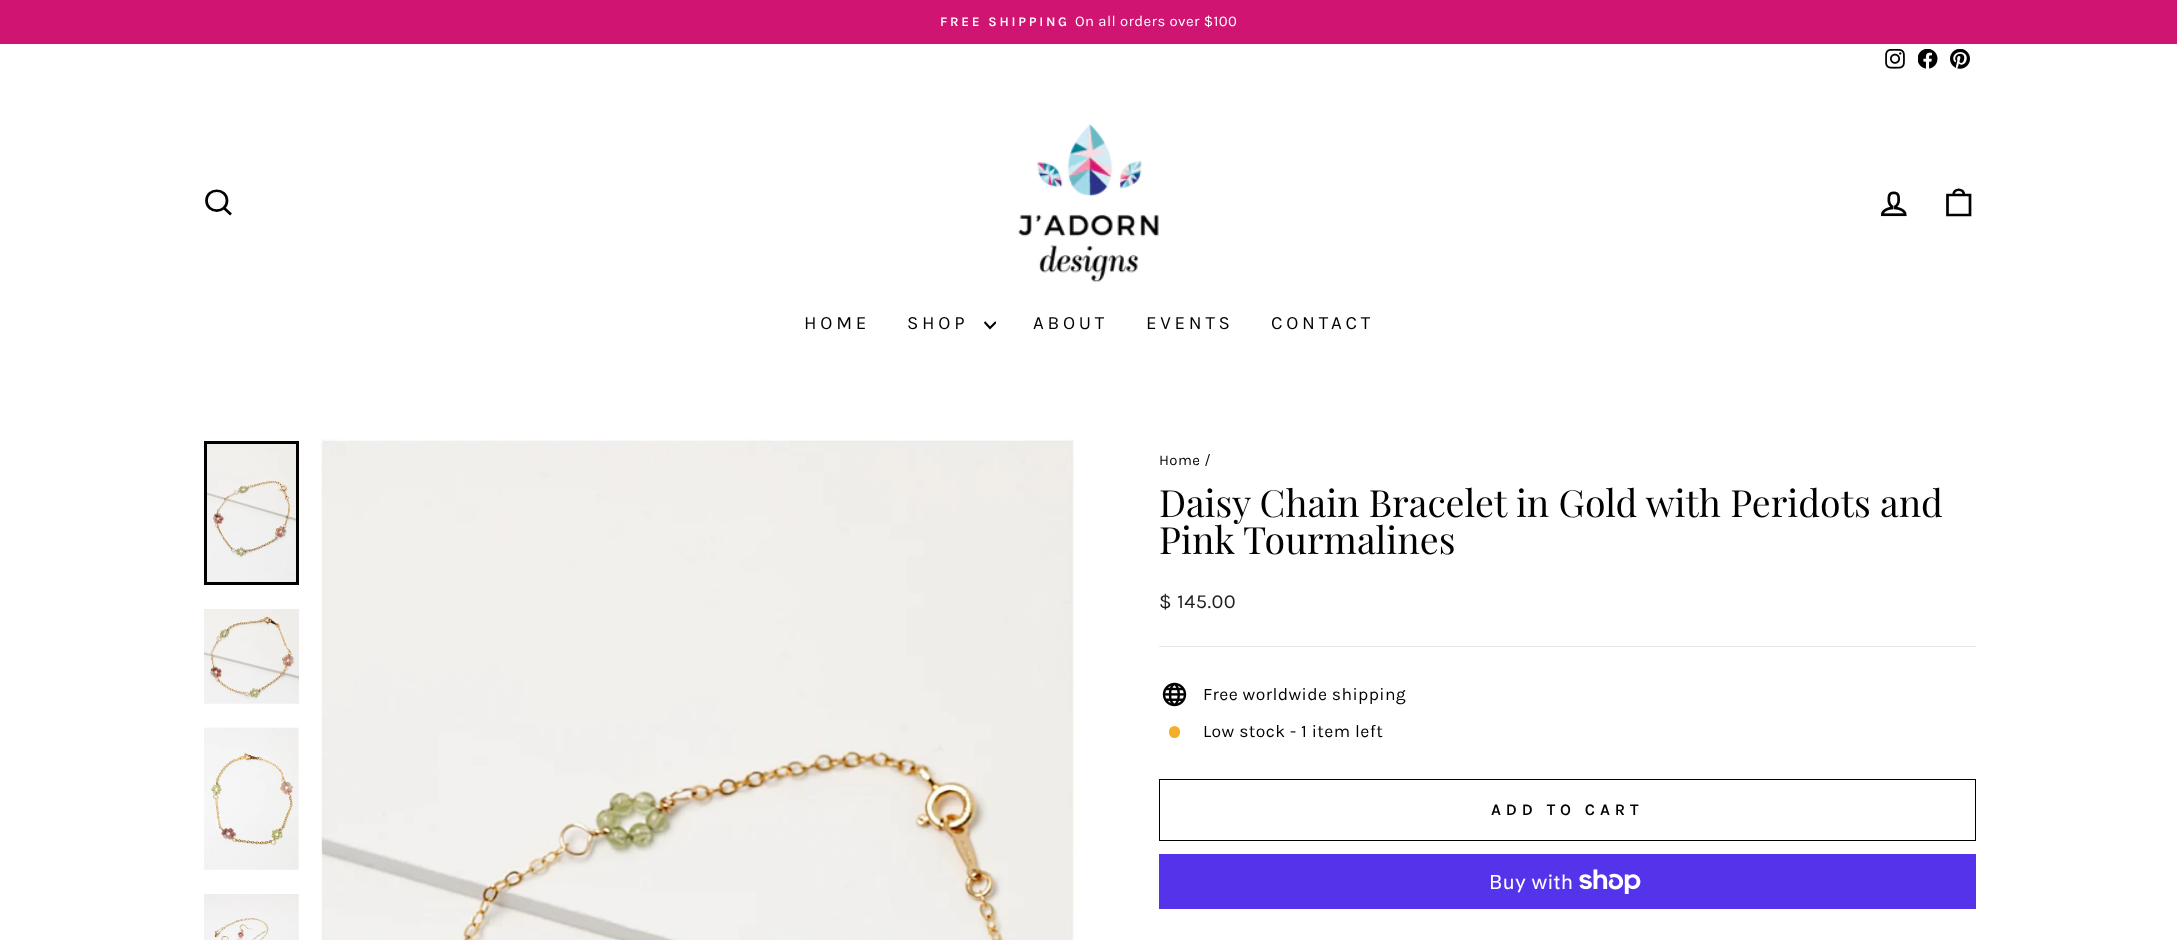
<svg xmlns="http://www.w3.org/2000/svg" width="2177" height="940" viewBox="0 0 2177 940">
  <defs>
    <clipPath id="clip1"><rect x="984" y="319" width="12" height="12"/></clipPath>
  </defs>
  <rect width="100%" height="100%" fill="rgb(255,255,255)"/>
  <rect x="0" y="0" width="2177" height="44" fill="rgb(207,20,114)"/>
  <text x="940" y="26" font-family="Karla" font-size="13.4" font-weight="600" letter-spacing="2.75" fill="rgb(255,255,255)">FREE SHIPPING</text>
  <text x="1075" y="26" font-family="Karla" font-size="14.9" letter-spacing="0.4" fill="rgb(255,255,255)">On all orders over $100</text>
  <image x="1885" y="49" width="20" height="20" href="pic1.png"/>
  <image x="1918" y="49" width="20" height="20" href="pic2.png"/>
  <image x="1950" y="49" width="20" height="20" href="pic3.png"/>
  <path d="M227 200.5C227 214 206.5 214 206.5 200.5C206.5 187.5 227 187.5 227 200.5ZM231 214.5L224 208" fill="none" stroke="rgb(0,0,0)" stroke-width="2.7"/>
  <image x="1018" y="124" width="141" height="159" href="pic4.png"/>
  <image x="1880" y="191" width="27" height="26" href="pic5.png"/>
  <path d="M1947.5 195H1970V215H1947.5ZM1953.5 195C1953.5 188 1964 188 1964 195" fill="none" stroke="rgb(0,0,0)" stroke-width="2.7"/>
  <g font-family="Karla" font-size="18.75" letter-spacing="3.75" fill="rgb(0,0,0)">
    <text x="804" y="329">HOME</text>
    <text x="907" y="329">SHOP</text>
  </g>
  <g clip-path="url(#clip1)">
    <path d="M984.5 322L990 328L996 322" fill="none" stroke="rgb(0,0,0)" stroke-width="2.2"/>
  </g>
  <g font-family="Karla" font-size="18.75" letter-spacing="3.75" fill="rgb(0,0,0)">
    <text x="1033" y="329">ABOUT</text>
    <text x="1146" y="329">EVENTS</text>
    <text x="1271" y="329">CONTACT</text>
  </g>
  <image x="203" y="441" width="93" height="144" href="pic6.png"/>
  <rect x="205.5" y="442.5" width="92" height="141" fill="none" stroke="rgb(0,0,0)" stroke-width="3"/>
  <image x="204" y="609" width="95" height="95" href="pic7.png"/>
  <image x="204" y="727" width="95" height="143" href="pic8.png"/>
  <image x="204" y="894" width="95" height="46" href="pic9.png"/>
  <image x="320" y="439" width="755" height="501" href="pic10.png"/>
  <text x="1159" y="465" font-family="Karla" font-size="14.9" letter-spacing="0.4" fill="rgb(0,0,0)">Home /</text>
  <g font-family="Playfair Display" font-size="37.5" fill="rgb(0,0,0)">
    <text>
      <tspan x="1159" y="517">Daisy Chain Bracelet in Gold with Peridots and</tspan>
      <tspan x="1159" y="554">Pink Tourmalines</tspan>
    </text>
  </g>
  <text x="1159" y="608" font-family="Karla" font-size="20" letter-spacing="0.4" fill="rgb(28,29,29)">$ 145.00</text>
  <rect x="1159" y="646" width="817" height="1" fill="rgb(232,232,225)"/>
  <image x="1162" y="682" width="25" height="25" href="pic11.png"/>
  <text x="1203" y="700" font-family="Karla" font-size="17.5" letter-spacing="0.4" fill="rgb(0,0,0)">Free worldwide shipping</text>
  <rect x="1169" y="726" width="11" height="12" rx="5.5" fill="rgb(244,175,41)"/>
  <text x="1203" y="737" font-family="Karla" font-size="17.5" letter-spacing="0.4" fill="rgb(0,0,0)">Low stock - 1 item left</text>
  <rect x="1159.5" y="779.5" width="816" height="61" fill="none" stroke="rgb(0,0,0)"/>
  <text x="1491" y="815" font-family="Karla" font-size="16.25" font-weight="600" letter-spacing="4.9" fill="rgb(0,0,0)">ADD TO CART</text>
  <rect x="1159" y="854" width="817" height="55" fill="rgb(84,51,235)"/>
  <text x="1489" y="889" font-family="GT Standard" font-size="20" letter-spacing="0.4" fill="rgb(255,255,255)">Buy with</text>
  <image x="1579" y="869" width="62" height="25" href="pic12.png"/>
</svg>
